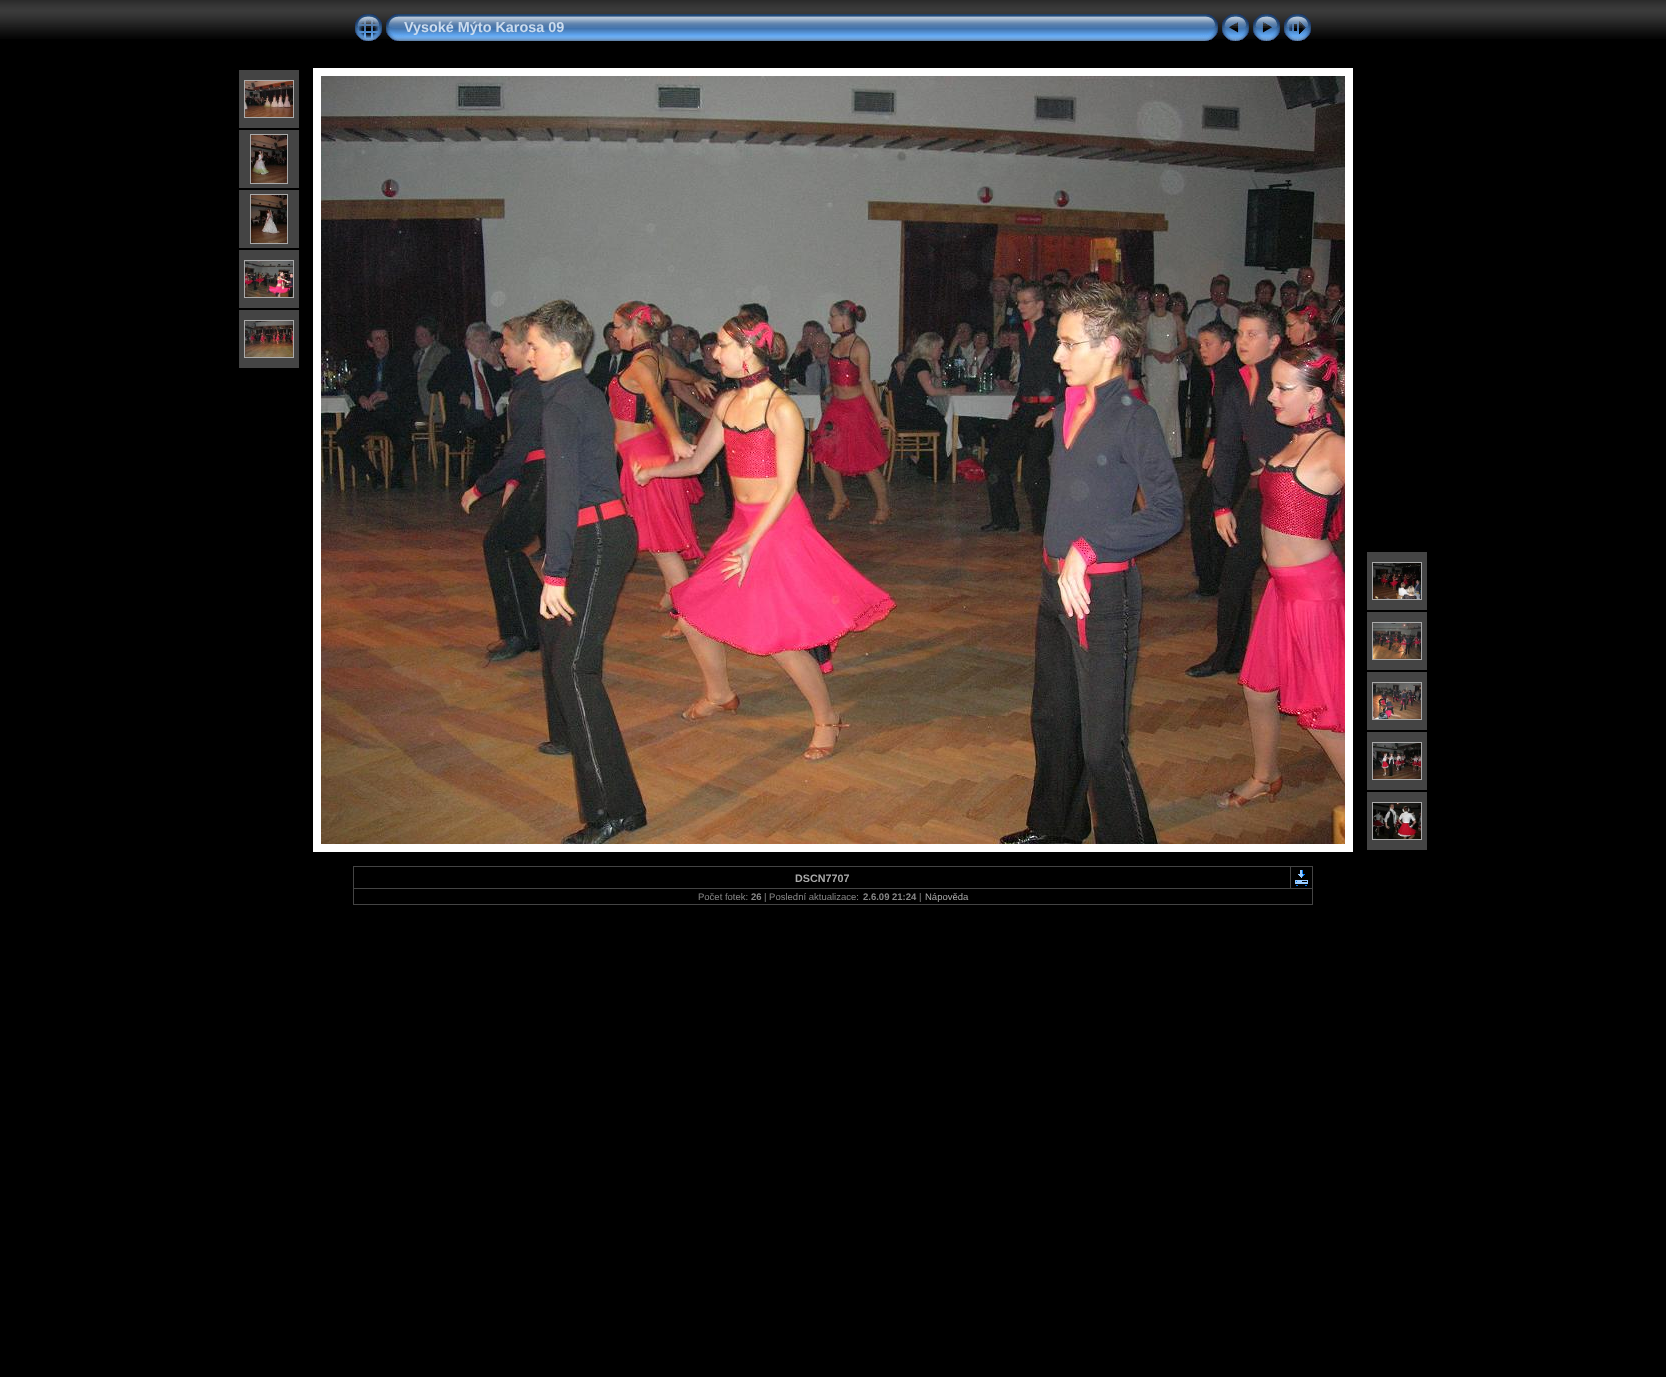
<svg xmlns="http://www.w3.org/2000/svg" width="1666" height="1377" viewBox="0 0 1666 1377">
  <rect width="100%" height="100%" fill="rgb(0,0,0)"/>
  <image x="0" y="0" width="1666" height="39" href="pic1.png"/>
  <image x="355" y="14" width="27" height="27" href="pic2.png"/>
  <image x="386" y="14" width="18" height="27" href="pic3.png"/>
  <image x="404" y="14" width="796" height="27" href="pic4.png"/>
  <text x="404" y="32" font-family="Liberation Sans" font-size="14.4" font-weight="bold" fill="rgb(204,220,238)">Vysoké Mýto Karosa 09</text>
  <image x="1200" y="14" width="18" height="27" href="pic5.png"/>
  <image x="1222" y="14" width="27" height="27" href="pic6.png"/>
  <image x="1253" y="14" width="27" height="27" href="pic7.png"/>
  <image x="1284" y="14" width="27" height="27" href="pic8.png"/>
  <rect x="239" y="70" width="60" height="58" fill="rgb(68,68,68)"/>
  <rect x="244.5" y="80.5" width="49" height="37" fill="none" stroke="rgb(170,170,170)"/>
  <image x="245" y="81" width="48" height="36" href="pic9.png"/>
  <rect x="239" y="130" width="60" height="58" fill="rgb(68,68,68)"/>
  <rect x="250.5" y="134.5" width="37" height="49" fill="none" stroke="rgb(170,170,170)"/>
  <image x="251" y="135" width="36" height="48" href="pic10.png"/>
  <rect x="239" y="190" width="60" height="58" fill="rgb(68,68,68)"/>
  <rect x="250.5" y="194.5" width="37" height="49" fill="none" stroke="rgb(170,170,170)"/>
  <image x="251" y="195" width="36" height="48" href="pic11.png"/>
  <rect x="239" y="250" width="60" height="58" fill="rgb(68,68,68)"/>
  <rect x="244.5" y="260.5" width="49" height="37" fill="none" stroke="rgb(170,170,170)"/>
  <image x="245" y="261" width="48" height="36" href="pic12.png"/>
  <rect x="239" y="310" width="60" height="58" fill="rgb(68,68,68)"/>
  <rect x="244.5" y="320.5" width="49" height="37" fill="none" stroke="rgb(170,170,170)"/>
  <image x="245" y="321" width="48" height="36" href="pic13.png"/>
  <rect x="317" y="72" width="1032" height="776" fill="none" stroke="rgb(255,255,255)" stroke-width="8"/>
  <image x="321" y="76" width="1024" height="768" href="pic14.png"/>
  <rect x="1367" y="552" width="60" height="58" fill="rgb(68,68,68)"/>
  <rect x="1372.5" y="562.5" width="49" height="37" fill="none" stroke="rgb(170,170,170)"/>
  <image x="1373" y="563" width="48" height="36" href="pic15.png"/>
  <rect x="1367" y="612" width="60" height="58" fill="rgb(68,68,68)"/>
  <rect x="1372.5" y="622.5" width="49" height="37" fill="none" stroke="rgb(170,170,170)"/>
  <image x="1373" y="623" width="48" height="36" href="pic16.png"/>
  <rect x="1367" y="672" width="60" height="58" fill="rgb(68,68,68)"/>
  <rect x="1372.5" y="682.5" width="49" height="37" fill="none" stroke="rgb(170,170,170)"/>
  <image x="1373" y="683" width="48" height="36" href="pic17.png"/>
  <rect x="1367" y="732" width="60" height="58" fill="rgb(68,68,68)"/>
  <rect x="1372.5" y="742.5" width="49" height="37" fill="none" stroke="rgb(170,170,170)"/>
  <image x="1373" y="743" width="48" height="36" href="pic18.png"/>
  <rect x="1367" y="792" width="60" height="58" fill="rgb(68,68,68)"/>
  <rect x="1372.5" y="802.5" width="49" height="37" fill="none" stroke="rgb(170,170,170)"/>
  <image x="1373" y="803" width="48" height="36" href="pic19.png"/>
  <rect x="353" y="866" width="960" height="1" fill="rgb(68,68,68)"/>
  <rect x="1312" y="866" width="1" height="39" fill="rgb(68,68,68)"/>
  <rect x="353" y="904" width="960" height="1" fill="rgb(68,68,68)"/>
  <rect x="353" y="866" width="1" height="39" fill="rgb(68,68,68)"/>
  <text x="795" y="882" font-family="Liberation Sans" font-size="10.75" font-weight="bold" fill="rgb(170,170,170)">DSCN7707</text>
  <rect x="353" y="888" width="960" height="1" fill="rgb(68,68,68)"/>
  <rect x="1290" y="866" width="1" height="23" fill="rgb(68,68,68)"/>
  <image x="1295" y="870" width="13" height="16" href="pic20.png"/>
  <text x="698" y="900" font-family="Liberation Sans" font-size="9.5" fill="rgb(136,136,136)">Počet fotek:</text>
  <text x="751" y="900" font-family="Liberation Sans" font-size="9.5" font-weight="bold" fill="rgb(136,136,136)">26</text>
  <text x="764" y="900" font-family="Liberation Sans" font-size="9.5" fill="rgb(136,136,136)">| Poslední aktualizace:</text>
  <text x="863" y="900" font-family="Liberation Sans" font-size="9.5" font-weight="bold" fill="rgb(136,136,136)">2.6.09 21:24</text>
  <text x="919" y="900" font-family="Liberation Sans" font-size="9.5" fill="rgb(136,136,136)">|</text>
  <text x="925" y="900" font-family="Liberation Sans" font-size="9.5" fill="rgb(170,170,170)">Nápověda</text>
</svg>
